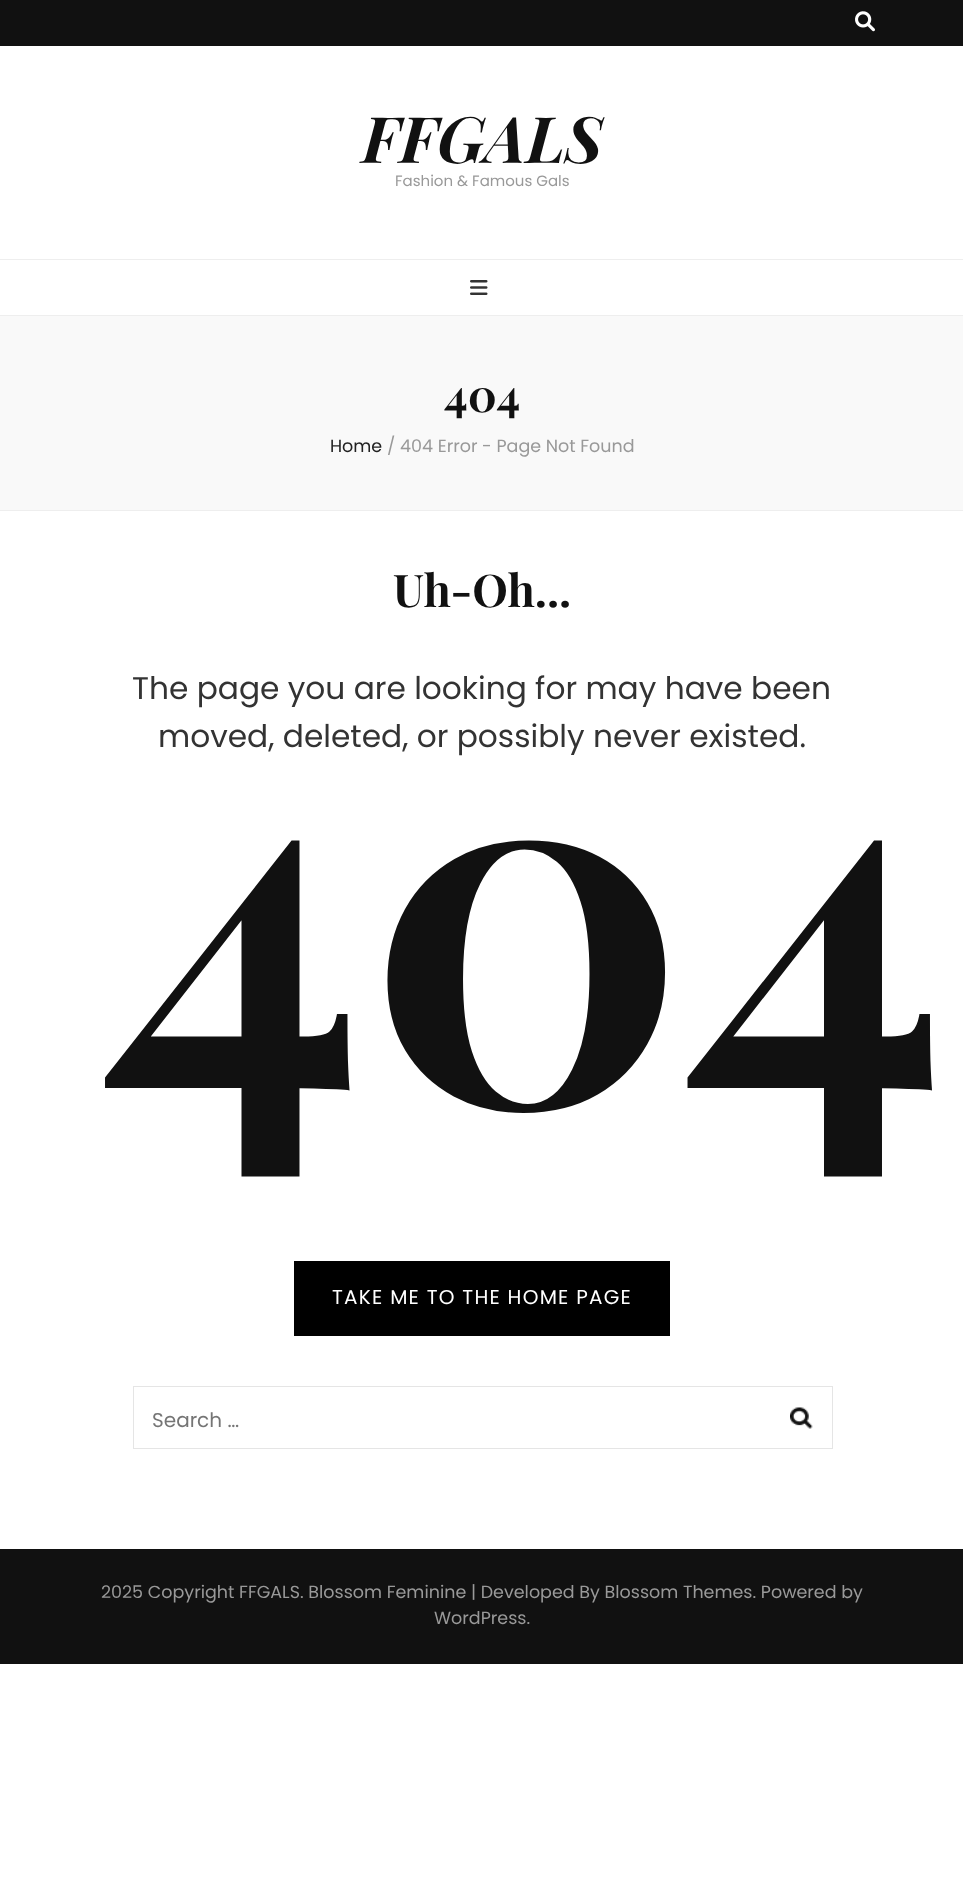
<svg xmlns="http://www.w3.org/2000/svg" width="963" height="1890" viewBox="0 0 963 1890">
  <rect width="100%" height="100%" fill="rgb(255,255,255)"/>
  <rect x="0" y="0" width="963" height="46" fill="rgb(17,17,17)"/>
  <image x="855" y="11" width="20" height="21" href="pic1.png"/>
  <text x="362" y="163" font-family="Playfair Display" font-size="64" font-weight="bold" font-style="italic" fill="rgb(17,17,17)">FFGALS</text>
  <text x="395" y="186" font-family="Poppins" font-size="15" fill="rgb(153,153,153)">Fashion &amp; Famous Gals</text>
  <rect x="0" y="259" width="963" height="1" fill="rgb(238,238,238)"/>
  <rect x="0" y="315" width="963" height="1" fill="rgb(238,238,238)"/>
  <image x="470" y="280" width="18" height="15" href="pic2.png"/>
  <rect x="0" y="316" width="963" height="194" fill="rgb(249,249,249)"/>
  <rect x="0" y="510" width="963" height="1" fill="rgb(238,238,238)"/>
  <text x="444" y="412" font-family="Playfair Display" font-size="45" font-weight="bold" fill="rgb(17,17,17)">404</text>
  <text x="330" y="452" font-family="Poppins" font-size="17.5" fill="rgb(34,34,34)">Home</text>
  <text x="387" y="452" font-family="Poppins" font-size="17.5" fill="rgb(153,153,153)">/ 404 Error - Page Not Found</text>
  <text x="393" y="607" font-family="Playfair Display" font-size="45" font-weight="bold" fill="rgb(17,17,17)">Uh-Oh...</text>
  <g font-family="Poppins" font-size="31.25" fill="rgb(51,51,51)">
    <text x="132" y="699">The page you are looking for may have been</text>
    <text x="158" y="747">moved, deleted, or possibly never existed.</text>
  </g>
  <text x="101" y="1106" font-family="Playfair Display" font-size="500" font-weight="bold" fill="rgb(17,17,17)">404</text>
  <rect x="294" y="1261" width="376" height="75" fill="rgb(0,0,0)"/>
  <text x="332" y="1304" font-family="Poppins" font-size="20" letter-spacing="1.25" fill="rgb(255,255,255)">TAKE ME TO THE HOME PAGE</text>
  <rect x="133.5" y="1386.5" width="699" height="62" fill="none" stroke="rgb(229,229,229)"/>
  <text x="152" y="1427" font-family="Poppins" font-size="20" fill="rgb(117,117,117)">Search …</text>
  <image x="790" y="1407" width="23" height="22" href="pic3.png"/>
  <rect x="0" y="1549" width="963" height="115" fill="rgb(17,17,17)"/>
  <g font-family="Poppins" font-size="17.5" fill="rgb(153,153,153)">
    <text x="101" y="1598">2025 Copyright FFGALS. Blossom Feminine | Developed By Blossom Themes. Powered by</text>
    <text x="434" y="1624">WordPress.</text>
  </g>
</svg>
